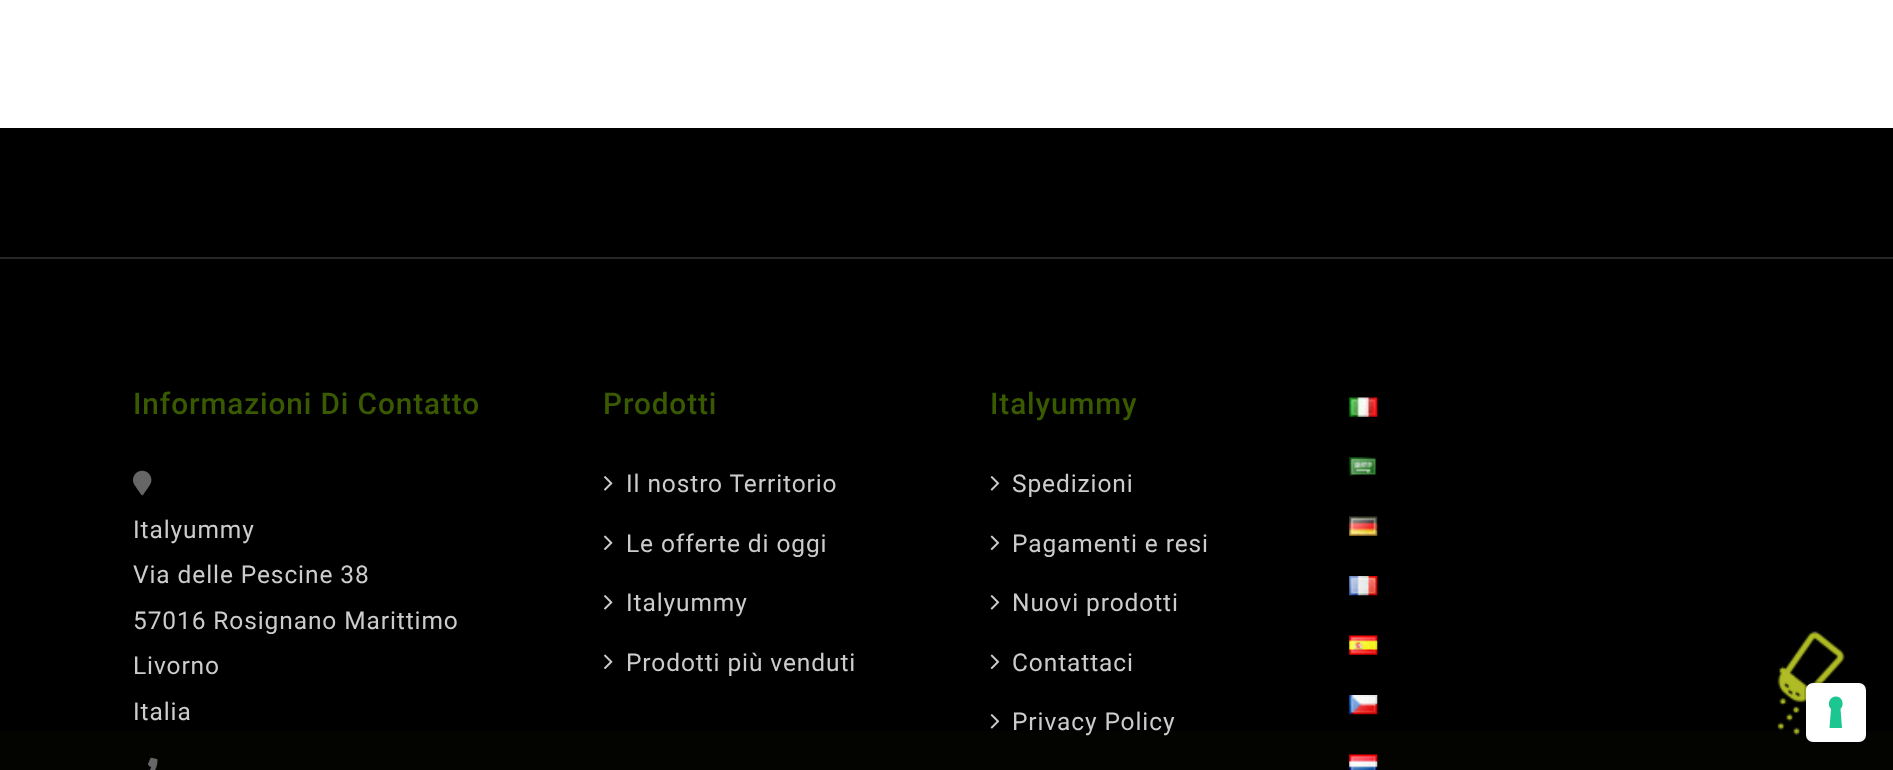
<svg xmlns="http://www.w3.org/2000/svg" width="1893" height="770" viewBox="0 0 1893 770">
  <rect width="100%" height="100%" fill="rgb(255,255,255)"/>
  <rect x="0" y="128" width="1893" height="603" fill="rgb(0,0,0)"/>
  <rect x="0" y="731" width="1893" height="39" fill="rgb(3,4,0)"/>
  <rect x="0" y="257" width="1893" height="2" fill="rgb(38,38,38)"/>
  <text x="133" y="414" font-family="Roboto" font-size="29.75" font-weight="500" letter-spacing="0.9" fill="rgb(58,90,2)">Informazioni Di Contatto</text>
  <image x="133" y="470" width="19" height="26" href="pic1.png"/>
  <g font-family="Roboto" font-size="24.5" letter-spacing="0.9" fill="rgb(204,204,204)">
    <text>
      <tspan x="133" y="538">Italyummy</tspan>
      <tspan x="133" y="583">Via delle Pescine 38</tspan>
      <tspan x="133" y="629">57016 Rosignano Marittimo</tspan>
      <tspan x="133" y="674">Livorno</tspan>
      <tspan x="133" y="720">Italia</tspan>
    </text>
  </g>
  <image x="148" y="757" width="10" height="13" href="pic2.png"/>
  <text x="603" y="414" font-family="Roboto" font-size="29.75" font-weight="500" letter-spacing="0.9" fill="rgb(58,90,2)">Prodotti</text>
  <image x="604" y="476" width="9" height="15" href="pic3.png"/>
  <text x="626" y="492" font-family="Roboto" font-size="24.5" letter-spacing="0.9" fill="rgb(204,204,204)">Il nostro Territorio</text>
  <image x="604" y="535" width="9" height="16" href="pic4.png"/>
  <text x="626" y="552" font-family="Roboto" font-size="24.5" letter-spacing="0.9" fill="rgb(204,204,204)">Le offerte di oggi</text>
  <image x="604" y="595" width="9" height="15" href="pic3.png"/>
  <text x="626" y="611" font-family="Roboto" font-size="24.5" letter-spacing="0.9" fill="rgb(204,204,204)">Italyummy</text>
  <image x="604" y="654" width="9" height="16" href="pic4.png"/>
  <text x="626" y="671" font-family="Roboto" font-size="24.5" letter-spacing="0.9" fill="rgb(204,204,204)">Prodotti più venduti</text>
  <text x="990" y="414" font-family="Roboto" font-size="29.75" font-weight="500" letter-spacing="0.9" fill="rgb(58,90,2)">Italyummy</text>
  <image x="990" y="476" width="10" height="15" href="pic5.png"/>
  <text x="1012" y="492" font-family="Roboto" font-size="24.5" letter-spacing="0.9" fill="rgb(204,204,204)">Spedizioni</text>
  <image x="990" y="535" width="10" height="16" href="pic6.png"/>
  <text x="1012" y="552" font-family="Roboto" font-size="24.5" letter-spacing="0.9" fill="rgb(204,204,204)">Pagamenti e resi</text>
  <image x="990" y="595" width="10" height="15" href="pic5.png"/>
  <text x="1012" y="611" font-family="Roboto" font-size="24.5" letter-spacing="0.9" fill="rgb(204,204,204)">Nuovi prodotti</text>
  <image x="990" y="654" width="10" height="16" href="pic6.png"/>
  <text x="1012" y="671" font-family="Roboto" font-size="24.5" letter-spacing="0.9" fill="rgb(204,204,204)">Contattaci</text>
  <image x="990" y="714" width="10" height="15" href="pic5.png"/>
  <text x="1012" y="730" font-family="Roboto" font-size="24.5" letter-spacing="0.9" fill="rgb(204,204,204)">Privacy Policy</text>
  <image x="1349" y="397" width="29" height="20" href="pic7.png"/>
  <image x="1349" y="457" width="28" height="20" href="pic8.png"/>
  <image x="1349" y="516" width="29" height="20" href="pic9.png"/>
  <image x="1349" y="576" width="29" height="20" href="pic10.png"/>
  <image x="1349" y="635" width="29" height="20" href="pic11.png"/>
  <image x="1349" y="695" width="29" height="20" href="pic12.png"/>
  <image x="1349" y="754" width="29" height="16" href="pic13.png"/>
  <image x="1777" y="631" width="68" height="104" href="pic14.png"/>
  <rect x="1805" y="682" width="61" height="61" rx="8" fill="none" stroke="rgba(0,0,0,0.15)" stroke-width="2"/>
  <rect x="1806" y="683" width="60" height="59" rx="7" fill="rgb(255,255,255)"/>
  <path d="M1836 696.5C1842 696.5 1845 704.5 1840.5 709L1842 728H1829.5L1831 709C1826.5 704.5 1829.5 696.5 1836 696.5Z" fill="rgb(28,198,145)" fill-rule="evenodd"/>
</svg>
